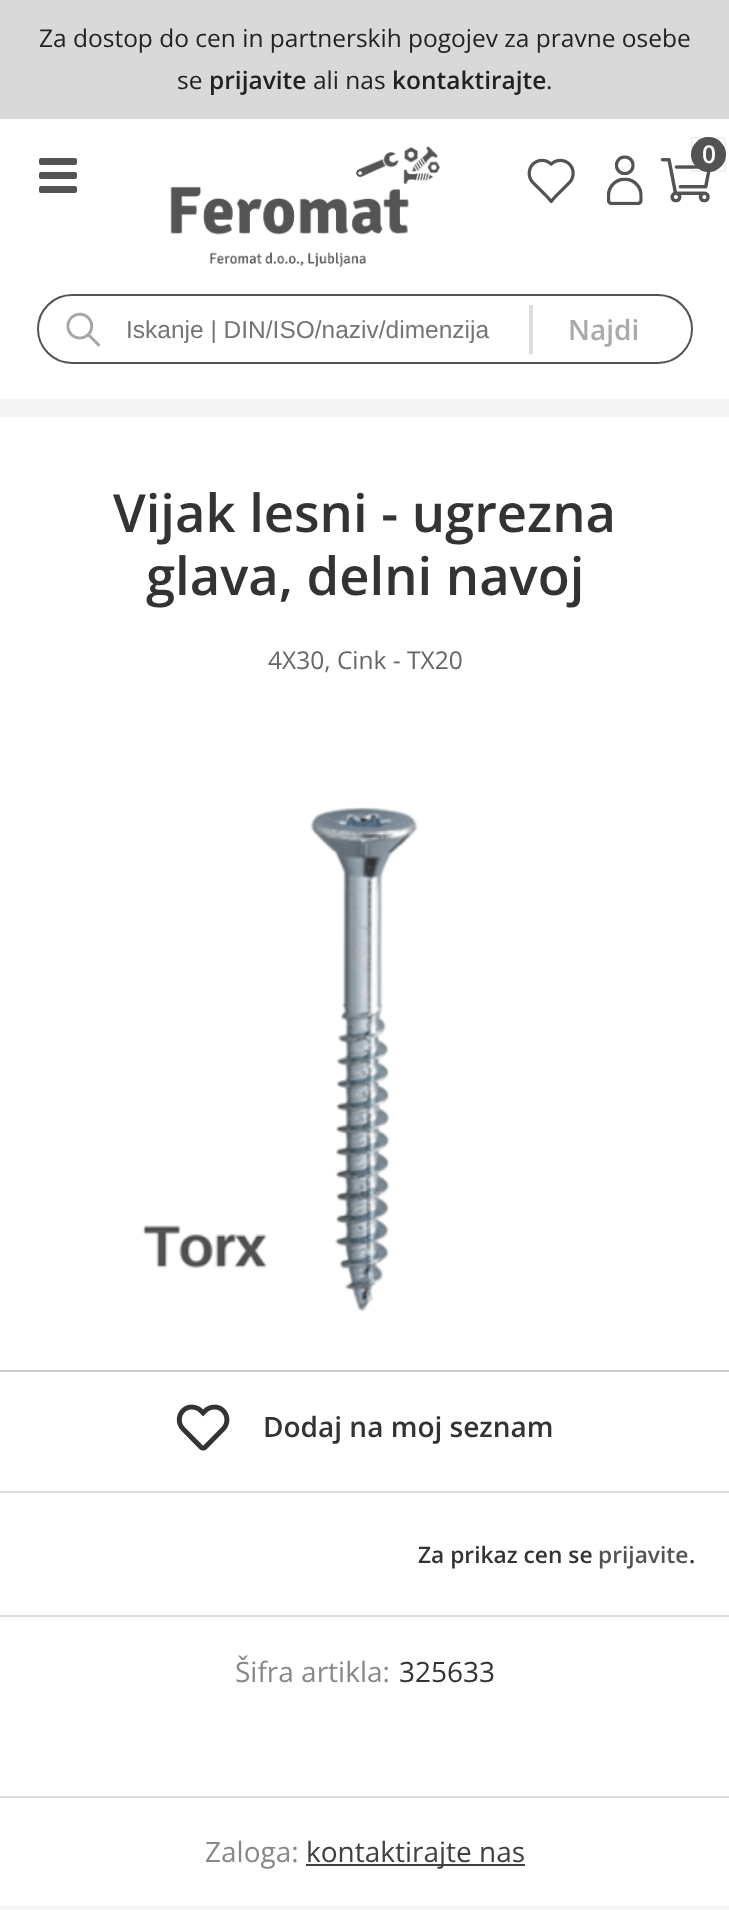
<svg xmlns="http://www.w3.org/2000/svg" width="729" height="1910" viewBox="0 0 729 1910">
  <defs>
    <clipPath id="clip1"><rect x="126" y="315" width="478" height="28"/></clipPath>
  </defs>
  <rect width="100%" height="100%" fill="rgb(255,255,255)"/>
  <rect x="0" y="0" width="729" height="119" fill="rgb(217,217,217)"/>
  <g font-family="Open Sans" font-size="24.5" fill="rgb(34,34,34)">
    <text x="39" y="47">Za dostop do cen in partnerskih pogojev za pravne osebe</text>
    <text x="177" y="89">se</text>
  </g>
  <text x="209" y="89" font-family="Open Sans" font-size="24.5" font-weight="600" fill="rgb(34,34,34)">prijavite</text>
  <text x="313" y="89" font-family="Open Sans" font-size="24.5" fill="rgb(34,34,34)">ali nas</text>
  <text x="392" y="89" font-family="Open Sans" font-size="24.5" font-weight="600" fill="rgb(34,34,34)">kontaktirajte</text>
  <text x="546" y="89" font-family="Open Sans" font-size="24.5" fill="rgb(34,34,34)">.</text>
  <rect x="0" y="399" width="729" height="18" fill="rgb(245,245,245)"/>
  <rect x="39" y="158" width="38" height="7" rx="2" fill="rgb(83,83,83)"/>
  <rect x="39" y="172" width="38" height="7" rx="2" fill="rgb(83,83,83)"/>
  <rect x="39" y="186" width="38" height="7" rx="2" fill="rgb(83,83,83)"/>
  <image x="170" y="146" width="271" height="121" href="pic1.png"/>
  <image x="527" y="158" width="48" height="46" href="pic2.png"/>
  <image x="606" y="155" width="37" height="51" href="pic3.png"/>
  <image x="660" y="158" width="52" height="45" href="pic4.png"/>
  <circle cx="708.5" cy="154.5" r="17.5" fill="rgb(83,83,83)"/>
  <rect x="692" y="138" width="33" height="33" fill="none" stroke="rgba(0,0,0,0.05)" stroke-width="2"/>
  <text x="702" y="163" font-family="Open Sans" font-size="24.5" font-weight="600" fill="rgb(255,255,255)">0</text>
  <image x="66" y="312" width="34" height="35" href="pic5.png"/>
  <rect x="38" y="295" width="654" height="68" rx="34" fill="none" stroke="rgb(83,83,83)" stroke-width="2"/>
  <g clip-path="url(#clip1)">
    <text x="126" y="338" font-family="Liberation Sans" font-size="24.5" fill="rgb(117,117,117)">Iskanje | DIN/ISO/naziv/dimenzija</text>
  </g>
  <rect x="529" y="305" width="4" height="49" fill="rgb(221,221,221)"/>
  <text x="568" y="340" font-family="Open Sans" font-size="28" font-weight="600" fill="rgb(170,170,170)">Najdi</text>
  <g font-family="Open Sans" font-size="52.5" font-weight="600" fill="rgb(51,51,51)">
    <text x="113" y="532">Vijak lesni - ugrezna</text>
    <text x="146" y="595">glava, delni navoj</text>
  </g>
  <text x="268" y="669" font-family="Open Sans" font-size="24.5" fill="rgb(102,102,102)">4X30, Cink - TX20</text>
  <image x="142" y="807" width="276" height="505" href="pic6.png"/>
  <rect x="0" y="1370" width="729" height="2" fill="rgb(204,204,204)"/>
  <image x="176" y="1404" width="54" height="47" href="pic7.png"/>
  <text x="263" y="1437" font-family="Open Sans" font-size="28" font-weight="600" fill="rgb(51,51,51)">Dodaj na moj seznam</text>
  <rect x="0" y="1491" width="729" height="2" fill="rgb(221,221,221)"/>
  <rect x="0" y="1615" width="729" height="2" fill="rgb(221,221,221)"/>
  <text x="418" y="1563" font-family="Open Sans" font-size="22.75" font-weight="600" fill="rgb(51,51,51)">Za prikaz cen se</text>
  <text x="598" y="1563" font-family="Open Sans" font-size="22.75" font-weight="600" fill="rgb(83,83,83)">prijavite</text>
  <text x="689" y="1563" font-family="Open Sans" font-size="22.75" font-weight="600" fill="rgb(51,51,51)">.</text>
  <text x="235" y="1682" font-family="Open Sans" font-size="28" fill="rgb(136,136,136)">Šifra artikla:</text>
  <text x="399" y="1682" font-family="Open Sans" font-size="28" fill="rgb(51,51,51)">325633</text>
  <rect x="0" y="1796" width="729" height="2" fill="rgb(221,221,221)"/>
  <text x="205" y="1862" font-family="Open Sans" font-size="28" fill="rgb(136,136,136)">Zaloga:</text>
  <rect x="306" y="1864" width="219" height="2" fill="rgb(64,64,64)"/>
  <text x="306" y="1862" font-family="Open Sans" font-size="28" fill="rgb(64,64,64)">kontaktirajte nas</text>
  <rect x="0" y="1906" width="729" height="4" fill="rgb(245,245,245)"/>
</svg>
